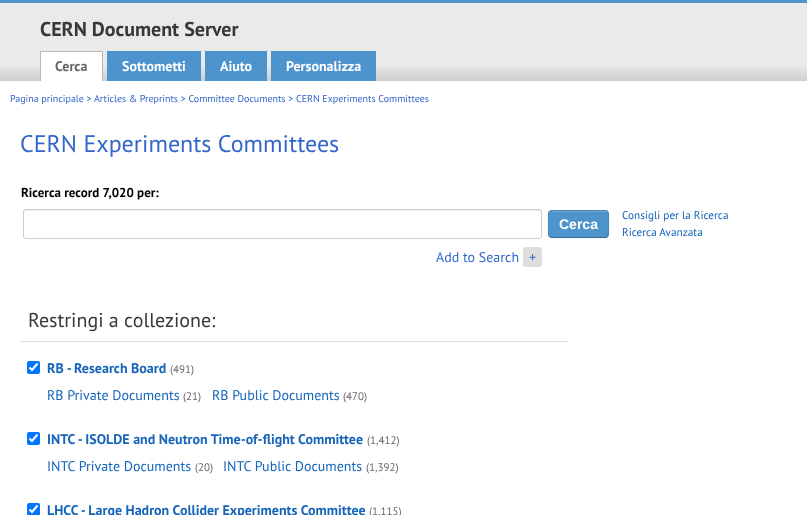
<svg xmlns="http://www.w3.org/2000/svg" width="807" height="515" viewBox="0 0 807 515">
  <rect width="100%" height="100%" fill="rgb(255,255,255)"/>
  <rect x="0" y="3" width="807" height="78" fill="rgb(234,234,234)"/>
  <image x="0" y="67" width="807" height="14" href="pic1.png"/>
  <rect x="0" y="0" width="807" height="3" fill="rgb(77,148,204)"/>
  <text x="40" y="36" font-family="PT Sans" font-size="20" font-weight="bold" fill="rgb(56,56,56)">CERN Document Server</text>
  <rect x="41" y="52" width="61" height="29" fill="rgb(255,255,255)"/>
  <rect x="40" y="51" width="63" height="1" fill="rgb(184,184,184)"/>
  <rect x="102" y="51" width="1" height="30" fill="rgb(184,184,184)"/>
  <rect x="40" y="51" width="1" height="30" fill="rgb(184,184,184)"/>
  <text x="55" y="71" font-family="PT Sans" font-size="14" font-weight="bold" fill="rgb(102,102,102)">Cerca</text>
  <rect x="107" y="51" width="94" height="30" fill="rgb(77,148,206)"/>
  <text x="122" y="71" font-family="PT Sans" font-size="14" font-weight="bold" fill="rgb(255,255,255)">Sottometti</text>
  <rect x="205" y="51" width="62" height="30" fill="rgb(77,148,206)"/>
  <text x="220" y="71" font-family="PT Sans" font-size="14" font-weight="bold" fill="rgb(255,255,255)">Aiuto</text>
  <rect x="271" y="51" width="105" height="30" fill="rgb(77,148,206)"/>
  <text x="286" y="71" font-family="PT Sans" font-size="14" font-weight="bold" fill="rgb(255,255,255)">Personalizza</text>
  <text x="10" y="102" font-family="PT Sans" font-size="10" fill="rgb(51,102,204)">Pagina principale &gt; Articles &amp; Preprints &gt; Committee Documents &gt; CERN Experiments Committees</text>
  <text x="20" y="152" font-family="PT Sans" font-size="24" fill="rgb(51,102,204)">CERN Experiments Committees</text>
  <text x="21" y="197" font-family="PT Sans" font-size="13" font-weight="bold" fill="rgb(0,0,0)">Ricerca record 7,020 per:</text>
  <path d="M26 211H539C540 211 541 212 541 213C541 212 541 210 539 210H26L24 211V213C24 212 25 211 26 211Z" fill="rgb(236,236,236)"/>
  <rect x="23.5" y="209.5" width="518" height="29" rx="2.5" fill="none" stroke="rgb(204,204,204)"/>
  <rect x="548" y="211" width="61" height="28" rx="4" fill="rgba(0,0,0,0.05)" filter="blur(1px)"/>
  <rect x="548" y="210" width="61" height="28" rx="4" fill="rgb(77,148,204)"/>
  <path d="M552 212H605C607 212 608 213 608 215C608 209 601 211 596 211H561C556 211 549 209 549 215C549 213 550 212 552 212Z" fill="rgb(113,169,214)"/>
  <path d="M607.5 236.5L605.5 237.5H551.5L549.5 236.5" fill="none" stroke="rgba(0,0,0,0.25)"/>
  <path d="M549.5 236.5C547.5 234 548.5 226.5 548.5 224C548.5 209.5 546.5 210.5 561 210.5H596C610.5 210.5 608.5 209.5 608.5 224C608.5 226.5 609.5 234 607.5 236.5" fill="none" stroke="rgba(0,0,0,0.1)"/>
  <text x="559" y="229" font-family="Liberation Sans" font-size="14" font-weight="bold" fill="rgb(255,255,255)">Cerca</text>
  <g font-family="PT Sans" font-size="11.25" fill="rgb(21,101,186)">
    <text>
      <tspan x="622" y="219">Consigli per la Ricerca</tspan>
      <tspan x="622" y="236">Ricerca Avanzata</tspan>
    </text>
  </g>
  <text x="436" y="262" font-family="PT Sans" font-size="14" fill="rgb(51,102,204)">Add to Search</text>
  <rect x="523" y="247" width="19" height="20" rx="3" fill="rgb(221,221,221)"/>
  <text x="529" y="262" font-family="PT Sans" font-size="14" fill="rgb(51,102,204)">+</text>
  <rect x="20" y="341" width="548" height="1" fill="rgb(221,221,221)"/>
  <text x="28" y="327" font-family="PT Sans" font-size="20" fill="rgb(56,56,56)">Restringi a collezione:</text>
  <rect x="27" y="361" width="13" height="13" rx="2" fill="rgb(0,117,255)"/>
  <path d="M29.5 367.5L32 370L37.5 363.5" fill="none" stroke="rgb(255,255,255)" stroke-width="2.1"/>
  <text x="47" y="373" font-family="PT Sans" font-size="14" font-weight="bold" fill="rgb(21,101,186)">RB - Research Board</text>
  <text x="170" y="373" font-family="PT Sans" font-size="11" fill="rgb(102,102,102)">(491)</text>
  <text x="47" y="400" font-family="PT Sans" font-size="14" fill="rgb(21,101,186)">RB Private Documents</text>
  <text x="183" y="400" font-family="PT Sans" font-size="11" fill="rgb(102,102,102)">(21)</text>
  <text x="212" y="400" font-family="PT Sans" font-size="14" fill="rgb(21,101,186)">RB Public Documents</text>
  <text x="343" y="400" font-family="PT Sans" font-size="11" fill="rgb(102,102,102)">(470)</text>
  <rect x="27" y="432" width="13" height="13" rx="2" fill="rgb(0,117,255)"/>
  <path d="M29.5 438.5L32 441L37.5 434.5" fill="none" stroke="rgb(255,255,255)" stroke-width="2.1"/>
  <text x="47" y="444" font-family="PT Sans" font-size="14" font-weight="bold" fill="rgb(21,101,186)">INTC - ISOLDE and Neutron Time-of-flight Committee</text>
  <text x="367" y="444" font-family="PT Sans" font-size="11" fill="rgb(102,102,102)">(1,412)</text>
  <text x="47" y="471" font-family="PT Sans" font-size="14" fill="rgb(21,101,186)">INTC Private Documents</text>
  <text x="195" y="471" font-family="PT Sans" font-size="11" fill="rgb(102,102,102)">(20)</text>
  <text x="223" y="471" font-family="PT Sans" font-size="14" fill="rgb(21,101,186)">INTC Public Documents</text>
  <text x="366" y="471" font-family="PT Sans" font-size="11" fill="rgb(102,102,102)">(1,392)</text>
  <rect x="27" y="503" width="13" height="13" rx="2" fill="rgb(0,117,255)"/>
  <path d="M29.5 509.5L32 512L37.5 505.5" fill="none" stroke="rgb(255,255,255)" stroke-width="2.1"/>
  <text x="47" y="515" font-family="PT Sans" font-size="14" font-weight="bold" fill="rgb(21,101,186)">LHCC - Large Hadron Collider Experiments Committee</text>
  <text x="369" y="515" font-family="PT Sans" font-size="11" fill="rgb(102,102,102)">(1,115)</text>
</svg>
